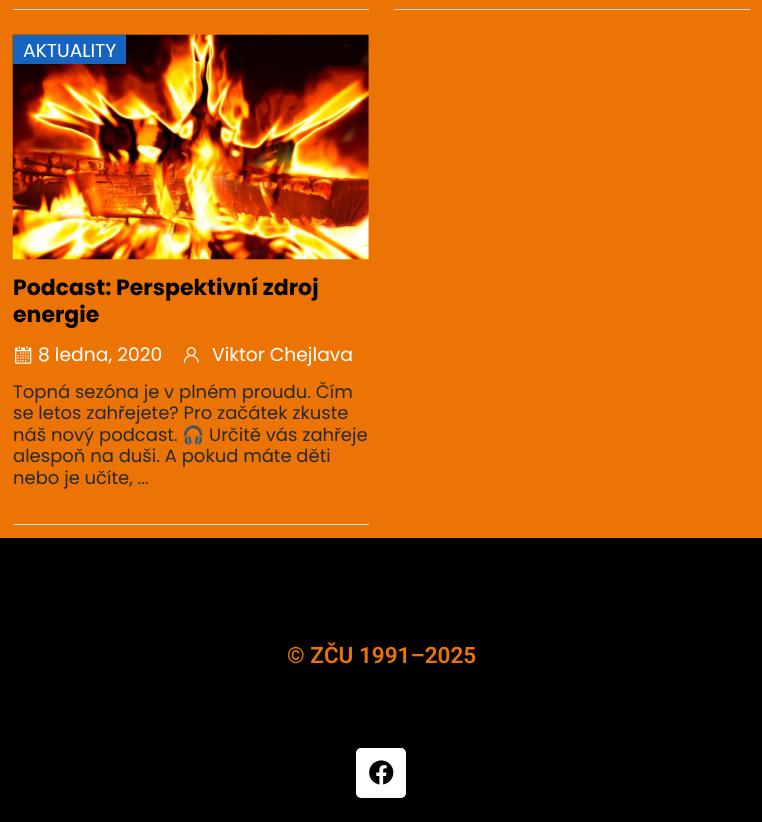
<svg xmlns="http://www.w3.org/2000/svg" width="762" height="822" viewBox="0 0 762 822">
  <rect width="100%" height="100%" fill="rgb(235,116,4)"/>
  <rect x="13" y="9" width="356" height="1" fill="rgb(221,221,221)"/>
  <rect x="394" y="9" width="356" height="1" fill="rgb(221,221,221)"/>
  <image x="12" y="34" width="357" height="226" href="pic1.png"/>
  <rect x="13" y="35" width="113" height="29" fill="rgb(21,101,192)"/>
  <text x="23" y="57" font-family="Poppins" font-size="18.75" fill="rgb(255,255,255)">AKTUALITY</text>
  <rect x="13" y="524" width="356" height="1" fill="rgb(221,221,221)"/>
  <g font-family="Poppins" font-size="22" font-weight="bold" fill="rgb(0,0,0)">
    <text>
      <tspan x="13" y="295">Podcast: Perspektivní zdroj</tspan>
      <tspan x="13" y="322">energie</tspan>
    </text>
  </g>
  <image x="15" y="346" width="17" height="18" href="pic2.png"/>
  <text x="38" y="361" font-family="Poppins" font-size="18.75" fill="rgb(255,255,255)">8 ledna, 2020</text>
  <image x="183" y="347" width="16" height="16" href="pic3.png"/>
  <text x="212" y="361" font-family="Poppins" font-size="18.75" fill="rgb(255,255,255)">Viktor Chejlava</text>
  <g font-family="Poppins" font-size="18" fill="rgb(41,41,41)">
    <text>
      <tspan x="13" y="398">Topná sezóna je v plném proudu. Čím</tspan>
      <tspan x="13" y="419">se letos zahřejete? Pro začátek zkuste</tspan>
      <tspan x="13" y="441">náš nový podcast.</tspan>
    </text>
  </g>
  <text x="182" y="441" font-family="Noto Color Emoji" font-size="18" fill="rgb(41,41,41)">🎧</text>
  <g font-family="Poppins" font-size="18" fill="rgb(41,41,41)">
    <text x="209" y="441">Určitě vás zahřeje</text>
    <text>
      <tspan x="13" y="462">alespoň na duši. A pokud máte děti</tspan>
      <tspan x="13" y="484">nebo je učíte, ...</tspan>
    </text>
  </g>
  <rect x="0" y="538" width="762" height="284" fill="rgb(0,0,0)"/>
  <text x="287" y="663" font-family="Roboto" font-size="22.5" font-weight="600" fill="rgb(235,116,4)">© ZČU 1991–2025</text>
  <rect x="356" y="748" width="50" height="50" rx="5" fill="rgb(255,255,255)"/>
  <image x="369" y="760" width="25" height="25" href="pic4.png"/>
</svg>
